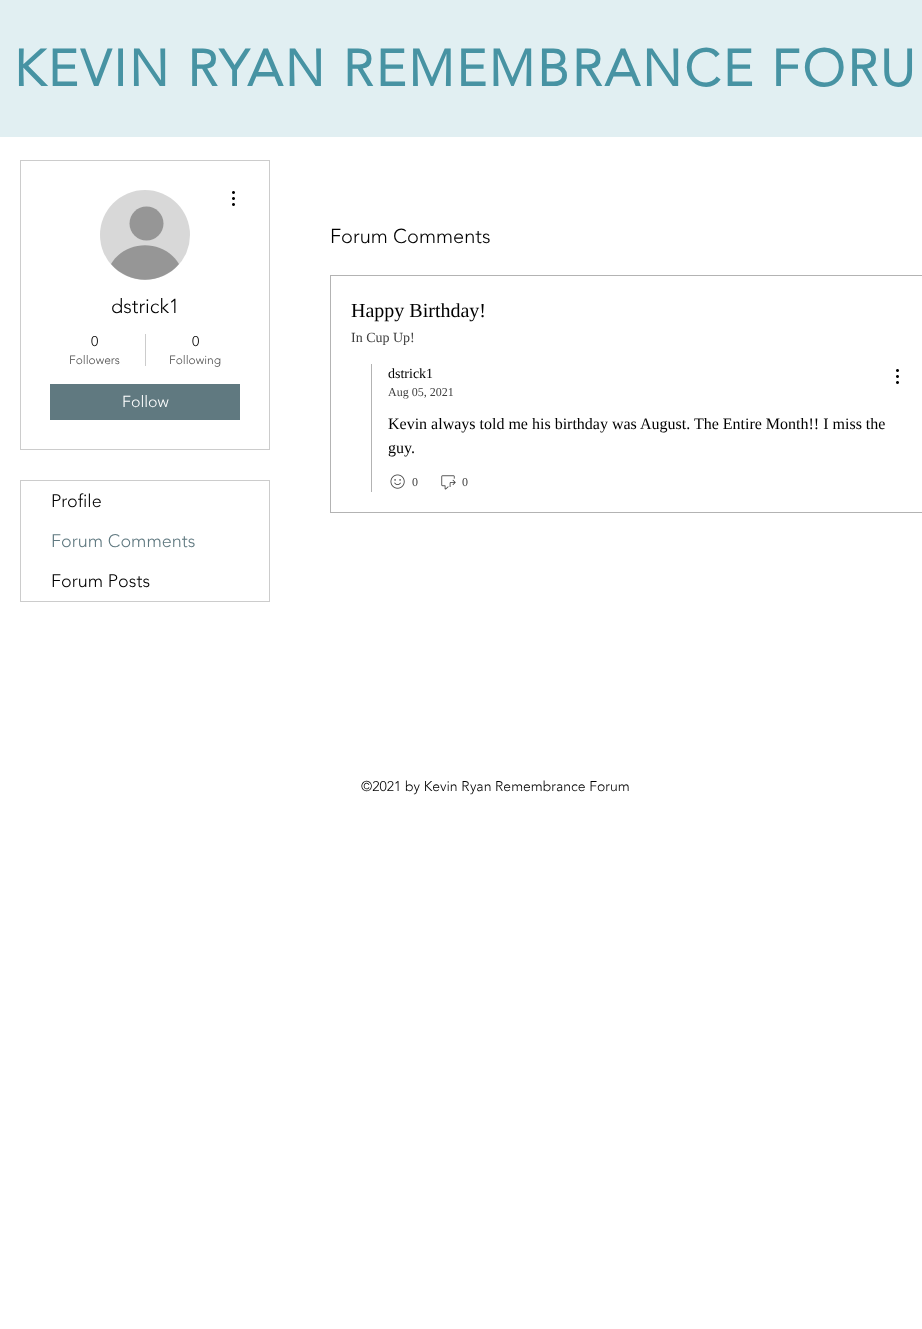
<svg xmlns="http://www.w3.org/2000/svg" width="922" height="1329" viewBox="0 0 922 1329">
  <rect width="100%" height="100%" fill="rgb(255,255,255)"/>
  <rect x="0" y="0" width="922" height="137" fill="rgb(225,239,242)"/>
  <text x="14" y="86" font-family="'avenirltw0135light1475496'" font-size="51" font-weight="bold" letter-spacing="2.55" fill="rgb(71,147,163)">KEVIN RYAN REMEMBRANCE FORU</text>
  <rect x="20.5" y="160.5" width="249" height="289" fill="none" stroke="rgb(204,204,204)"/>
  <circle cx="145" cy="235" r="45" fill="rgb(216,216,216)"/>
  <circle cx="146.5" cy="223.5" r="17" fill="rgb(150,150,150)"/>
  <path d="M179 264C161 285 129 285 111 264C126 239 164 239 179 264Z" fill="rgb(150,150,150)"/>
  <image x="232" y="191" width="3" height="15" href="pic1.png"/>
  <text x="111" y="313" font-family="'avenirltw0135light1475496'" font-size="20" font-weight="300" fill="rgb(0,0,0)">dstrick1</text>
  <text x="91" y="346" font-family="'avenirltw0135light1475496'" font-size="14" font-weight="300" fill="rgb(0,0,0)">0</text>
  <text x="69" y="364" font-family="'avenirltw0135light1475496'" font-size="12" font-weight="300" fill="rgb(77,77,77)">Followers</text>
  <rect x="145" y="334" width="1" height="32" fill="rgb(204,204,204)"/>
  <text x="192" y="346" font-family="'avenirltw0135light1475496'" font-size="14" font-weight="300" fill="rgb(0,0,0)">0</text>
  <text x="169" y="364" font-family="'avenirltw0135light1475496'" font-size="12" font-weight="300" fill="rgb(77,77,77)">Following</text>
  <rect x="50" y="384" width="190" height="36" fill="rgb(96,121,128)"/>
  <text x="122" y="407" font-family="'avenirltw0135light1475496'" font-size="16" font-weight="300" fill="rgb(255,255,255)">Follow</text>
  <rect x="20.5" y="480.5" width="249" height="121" fill="none" stroke="rgb(204,204,204)"/>
  <text x="51" y="507" font-family="'avenirltw0135light1475496'" font-size="18" font-weight="300" fill="rgb(0,0,0)">Profile</text>
  <text x="51" y="547" font-family="'avenirltw0135light1475496'" font-size="18" font-weight="300" fill="rgb(96,121,128)">Forum Comments</text>
  <text x="51" y="587" font-family="'avenirltw0135light1475496'" font-size="18" font-weight="300" fill="rgb(0,0,0)">Forum Posts</text>
  <text x="330" y="243" font-family="'avenirltw0135light1475496'" font-size="20" font-weight="300" fill="rgb(0,0,0)">Forum Comments</text>
  <rect x="330.5" y="275.5" width="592" height="237" fill="none" stroke="rgb(179,179,179)"/>
  <text x="351" y="317" font-family="Liberation Serif" font-size="20" fill="rgb(0,0,0)">Happy Birthday!</text>
  <text x="351" y="342" font-family="Liberation Serif" font-size="14" fill="rgb(64,64,64)">In Cup Up!</text>
  <rect x="371" y="364" width="1" height="128" fill="rgb(179,179,179)"/>
  <text x="388" y="378" font-family="Liberation Serif" font-size="14" fill="rgb(0,0,0)">dstrick1</text>
  <text x="388" y="396" font-family="Liberation Serif" font-size="12" fill="rgb(64,64,64)">Aug 05, 2021</text>
  <image x="896" y="369" width="3" height="15" href="pic1.png"/>
  <g font-family="Liberation Serif" font-size="16" fill="rgb(0,0,0)">
    <text>
      <tspan x="388" y="429">Kevin always told me his birthday was August. The Entire Month!! I miss the</tspan>
      <tspan x="388" y="453">guy.</tspan>
    </text>
  </g>
  <image x="390" y="474" width="15" height="15" href="pic2.png"/>
  <text x="412" y="486" font-family="Liberation Serif" font-size="12" fill="rgb(64,64,64)">0</text>
  <image x="441" y="475" width="15" height="15" href="pic3.png"/>
  <text x="462" y="486" font-family="Liberation Serif" font-size="12" fill="rgb(64,64,64)">0</text>
  <text x="361" y="791" font-family="'avenirltw0135light1475496'" font-size="14" font-weight="300" fill="rgb(0,0,0)">©2021 by Kevin Ryan Remembrance Forum</text>
</svg>
